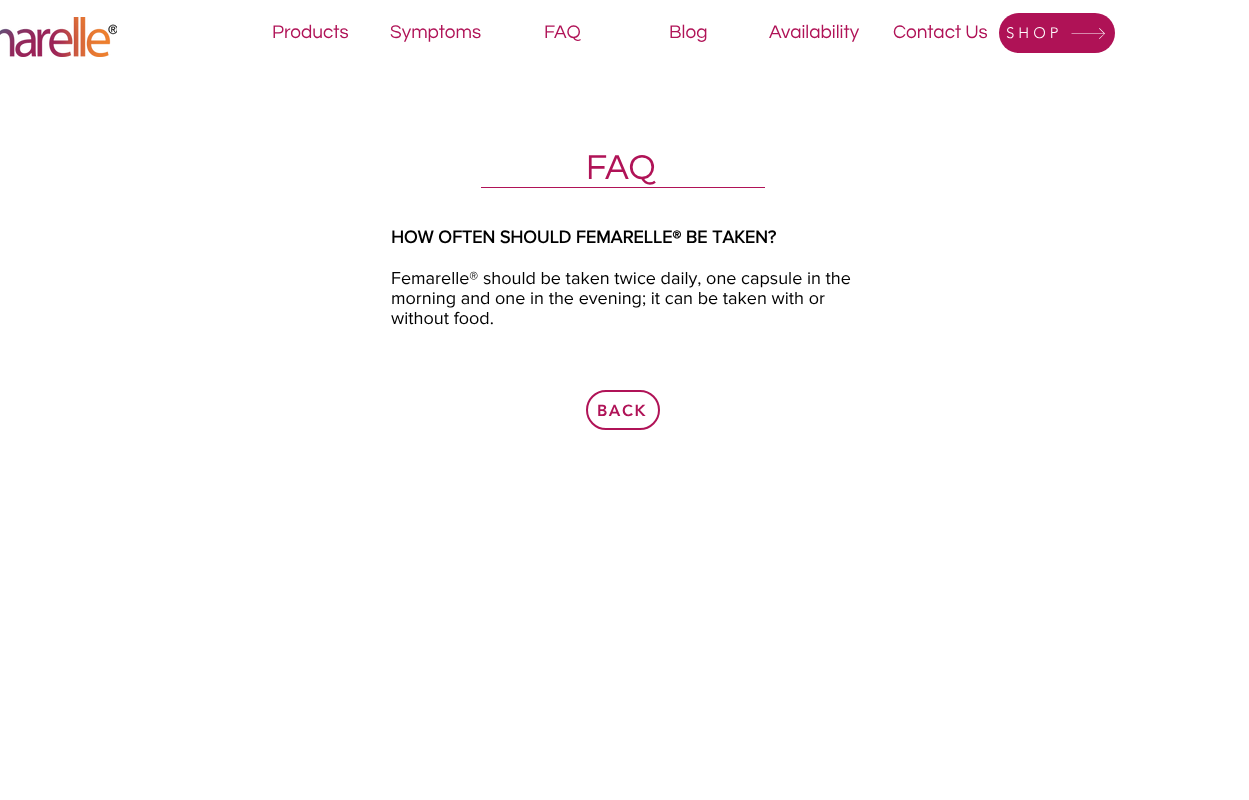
<svg xmlns="http://www.w3.org/2000/svg" width="1249" height="800" viewBox="0 0 1249 800">
  <rect width="100%" height="100%" fill="rgb(255,255,255)"/>
  <image x="0" y="17" width="117" height="40" href="pic1.png"/>
  <g font-family="Questrial" font-size="19" fill="rgb(176,19,87)">
    <text x="272" y="38">Products</text>
    <text x="390" y="38">Symptoms</text>
    <text x="544" y="38">FAQ</text>
    <text x="669" y="38">Blog</text>
    <text x="769" y="38">Availability</text>
    <text x="893" y="38">Contact Us</text>
  </g>
  <rect x="999" y="13" width="116" height="40" rx="20" fill="rgb(175,18,86)"/>
  <text x="1006" y="38" font-family="'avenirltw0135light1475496'" font-size="15" font-weight="300" letter-spacing="4" fill="rgb(255,255,255)">SHOP</text>
  <path d="M1099.5 28L1099 28.5L1104 33.5H1071.5V34H1104L1099 38.5L1099.5 39L1105 33.5Z" fill="rgb(255,255,255)"/>
  <text x="586" y="179" font-family="Questrial" font-size="36" fill="rgb(176,19,87)">FAQ</text>
  <rect x="481" y="187" width="284" height="1" fill="rgb(176,19,87)"/>
  <text x="391" y="243" font-family="'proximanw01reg'" font-size="18" font-weight="bold" fill="rgb(0,0,0)">HOW OFTEN SHOULD FEMARELLE® BE TAKEN?</text>
  <g font-family="'proximanw01reg'" font-size="18" fill="rgb(0,0,0)">
    <text>
      <tspan x="391" y="284">Femarelle® should be taken twice daily, one capsule in the</tspan>
      <tspan x="391" y="304">morning and one in the evening; it can be taken with or</tspan>
      <tspan x="391" y="324">without food.</tspan>
    </text>
  </g>
  <rect x="587" y="391" width="72" height="38" rx="19" fill="none" stroke="rgb(176,19,87)" stroke-width="2"/>
  <text x="597" y="416" font-family="'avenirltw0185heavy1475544'" font-size="16" font-weight="900" letter-spacing="1.5" fill="rgb(176,19,87)">BACK</text>
</svg>
